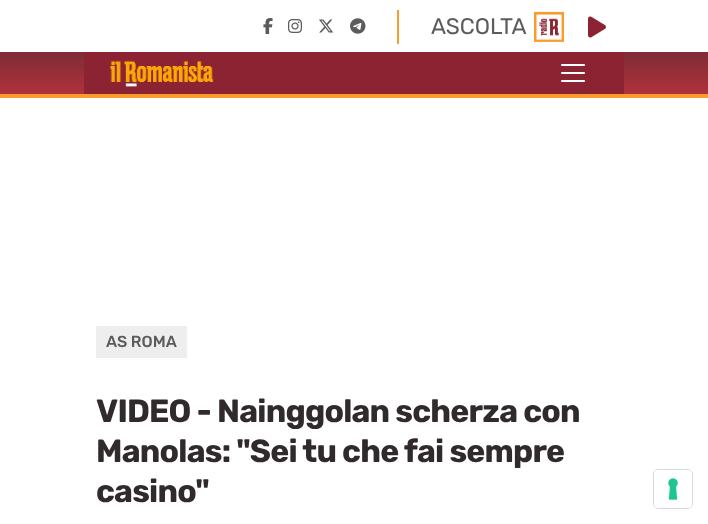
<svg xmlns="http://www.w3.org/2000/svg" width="708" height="524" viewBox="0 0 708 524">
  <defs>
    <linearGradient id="g1" gradientUnits="userSpaceOnUse" x1="354" y1="52" x2="354" y2="94"><stop offset="0" stop-color="rgb(127,44,52)"/><stop offset="1" stop-color="rgb(174,50,60)"/></linearGradient>
  </defs>
  <rect width="100%" height="100%" fill="rgb(255,255,255)"/>
  <image x="263" y="18" width="10" height="16" href="pic1.png"/>
  <image x="288" y="19" width="14" height="14" href="pic2.png"/>
  <image x="319" y="19" width="15" height="14" href="pic3.png"/>
  <image x="350" y="18" width="16" height="16" href="pic4.png"/>
  <rect x="397" y="10" width="2" height="34" fill="rgb(251,154,45)"/>
  <text x="431" y="34" font-family="Rubik" font-size="22.5" fill="rgb(92,92,92)">ASCOLTA</text>
  <image x="534" y="11" width="30" height="31" href="pic5.png"/>
  <image x="588" y="16" width="18" height="22" href="pic6.png"/>
  <rect x="0" y="94" width="708" height="4" fill="rgb(250,154,44)"/>
  <rect x="0" y="52" width="708" height="42" fill="url(#g1)"/>
  <rect x="84" y="52" width="540" height="42" fill="rgb(139,35,50)"/>
  <image x="109" y="60" width="105" height="27" href="pic7.png"/>
  <image x="561" y="64" width="24" height="18" href="pic8.png"/>
  <rect x="96" y="326" width="91" height="32" fill="rgb(238,238,238)"/>
  <text x="106" y="347" font-family="Rubik" font-size="16" font-weight="500" fill="rgb(92,92,92)">AS ROMA</text>
  <g font-family="Rubik" font-size="32" font-weight="bold" letter-spacing="-0.8" fill="rgb(48,42,44)">
    <text>
      <tspan x="96" y="422">VIDEO - Nainggolan scherza con</tspan>
      <tspan x="96" y="462">Manolas: "Sei tu che fai sempre</tspan>
      <tspan x="96" y="502">casino"</tspan>
    </text>
  </g>
  <rect x="653.5" y="469.5" width="39" height="39" rx="4.5" fill="none" stroke="rgb(217,217,217)"/>
  <rect x="654" y="470" width="38" height="38" rx="4" fill="rgb(255,255,255)"/>
  <image x="668" y="478" width="10" height="22" href="pic9.png"/>
</svg>
